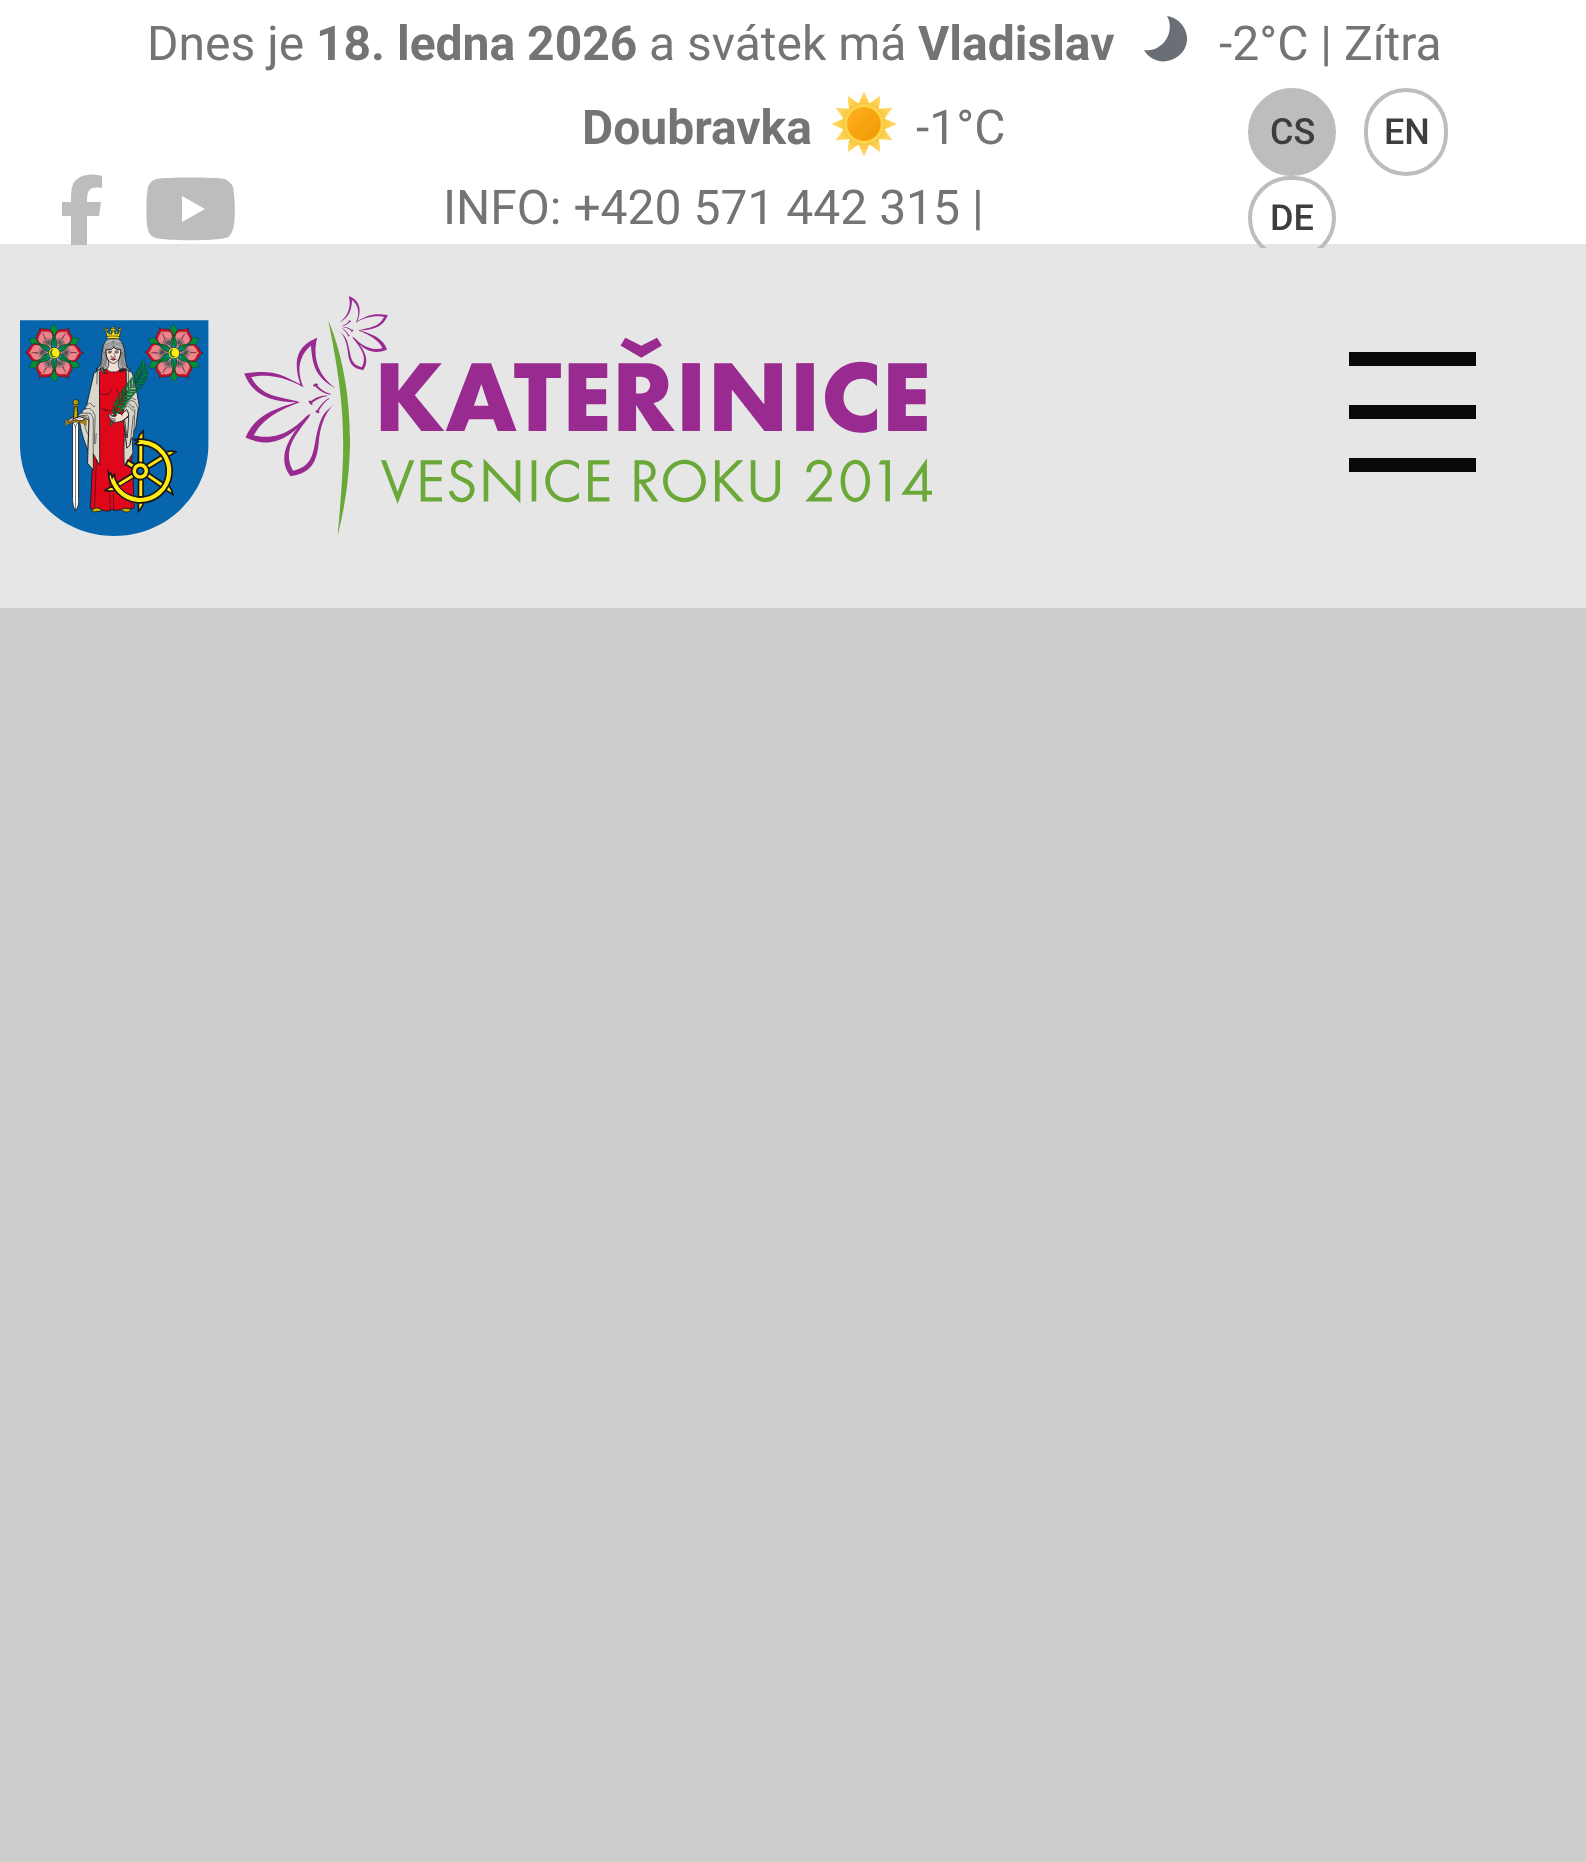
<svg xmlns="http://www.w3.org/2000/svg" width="1586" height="1862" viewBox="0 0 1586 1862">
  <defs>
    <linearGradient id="g1" gradientUnits="userSpaceOnUse" x1="1144" y1="39" x2="1188" y2="18"><stop offset="0" stop-color="rgb(104,110,115)"/><stop offset="1" stop-color="rgb(106,112,117)"/></linearGradient>
  </defs>
  <rect width="100%" height="100%" fill="rgb(255,255,255)"/>
  <rect x="0" y="244" width="1586" height="4" fill="rgb(229,229,229)"/>
  <text x="147" y="60" font-family="Roboto" font-size="48" fill="rgb(116,116,116)">Dnes je</text>
  <text x="316" y="60" font-family="Roboto" font-size="48" font-weight="bold" fill="rgb(116,116,116)">18. ledna 2026</text>
  <text x="649" y="60" font-family="Roboto" font-size="48" fill="rgb(116,116,116)">a svátek má</text>
  <text x="918" y="60" font-family="Roboto" font-size="48" font-weight="bold" fill="rgb(116,116,116)">Vladislav</text>
  <path d="M1167 16C1176 32 1162 53 1144 50C1149 59 1160 64 1171 60C1181 57 1188 47 1187 37C1186 26 1177 17 1167 16Z" fill="url(#g1)"/>
  <text x="1219" y="60" font-family="Roboto" font-size="48" fill="rgb(116,116,116)">-2°C | Zítra</text>
  <text x="582" y="144" font-family="Roboto" font-size="48" font-weight="bold" fill="rgb(116,116,116)">Doubravka</text>
  <image x="831" y="91" width="66" height="66" href="pic1.png"/>
  <text x="916" y="144" font-family="Roboto" font-size="48" fill="rgb(116,116,116)">-1°C</text>
  <path d="M71 216V245V216V245H87V216H99L101 202H87C87 190 89 186 102 188V176C91 173 76 174 72 187C71 192 71 197 71 202H62V216Z" fill="rgb(190,189,189)"/>
  <path d="M233 187C232 184 229 181 225 179C217 177 165 177 156 179L152 181C150 183 149 185 148 187C146 196 146 222 148 230C149 234 152 237 156 238C165 241 216 241 225 238C227 238 229 237 230 235C237 229 235 197 233 187ZM182 222V196V222V196L205 209Z" fill="rgb(190,189,189)"/>
  <text x="443" y="224" font-family="Roboto" font-size="48" fill="rgb(116,116,116)">INFO: +420 571 442 315 |</text>
  <circle cx="1292" cy="132" r="42" fill="rgb(190,189,189)" stroke="rgb(190,189,189)" stroke-width="4"/>
  <text x="1270" y="144" font-family="Roboto" font-size="36" font-weight="500" fill="rgb(61,61,61)">CS</text>
  <rect x="1366" y="90" width="80" height="84" rx="40" fill="none" stroke="rgb(190,189,189)" stroke-width="4"/>
  <text x="1384" y="144" font-family="Roboto" font-size="36" font-weight="500" fill="rgb(61,61,61)">EN</text>
  <rect x="1250" y="178" width="84" height="80" rx="40" fill="none" stroke="rgb(190,189,189)" stroke-width="4"/>
  <text x="1270" y="230" font-family="Roboto" font-size="36" font-weight="500" fill="rgb(61,61,61)">DE</text>
  <rect x="0" y="248" width="1586" height="360" fill="rgb(230,230,230)"/>
  <image x="20" y="296" width="912" height="240" href="pic2.png"/>
  <rect x="1349" y="352" width="127" height="14" fill="rgb(8,8,8)"/>
  <rect x="1349" y="405" width="127" height="14" fill="rgb(8,8,8)"/>
  <rect x="1349" y="458" width="127" height="14" fill="rgb(8,8,8)"/>
  <rect x="0" y="608" width="1586" height="1254" fill="rgb(204,204,204)"/>
</svg>
